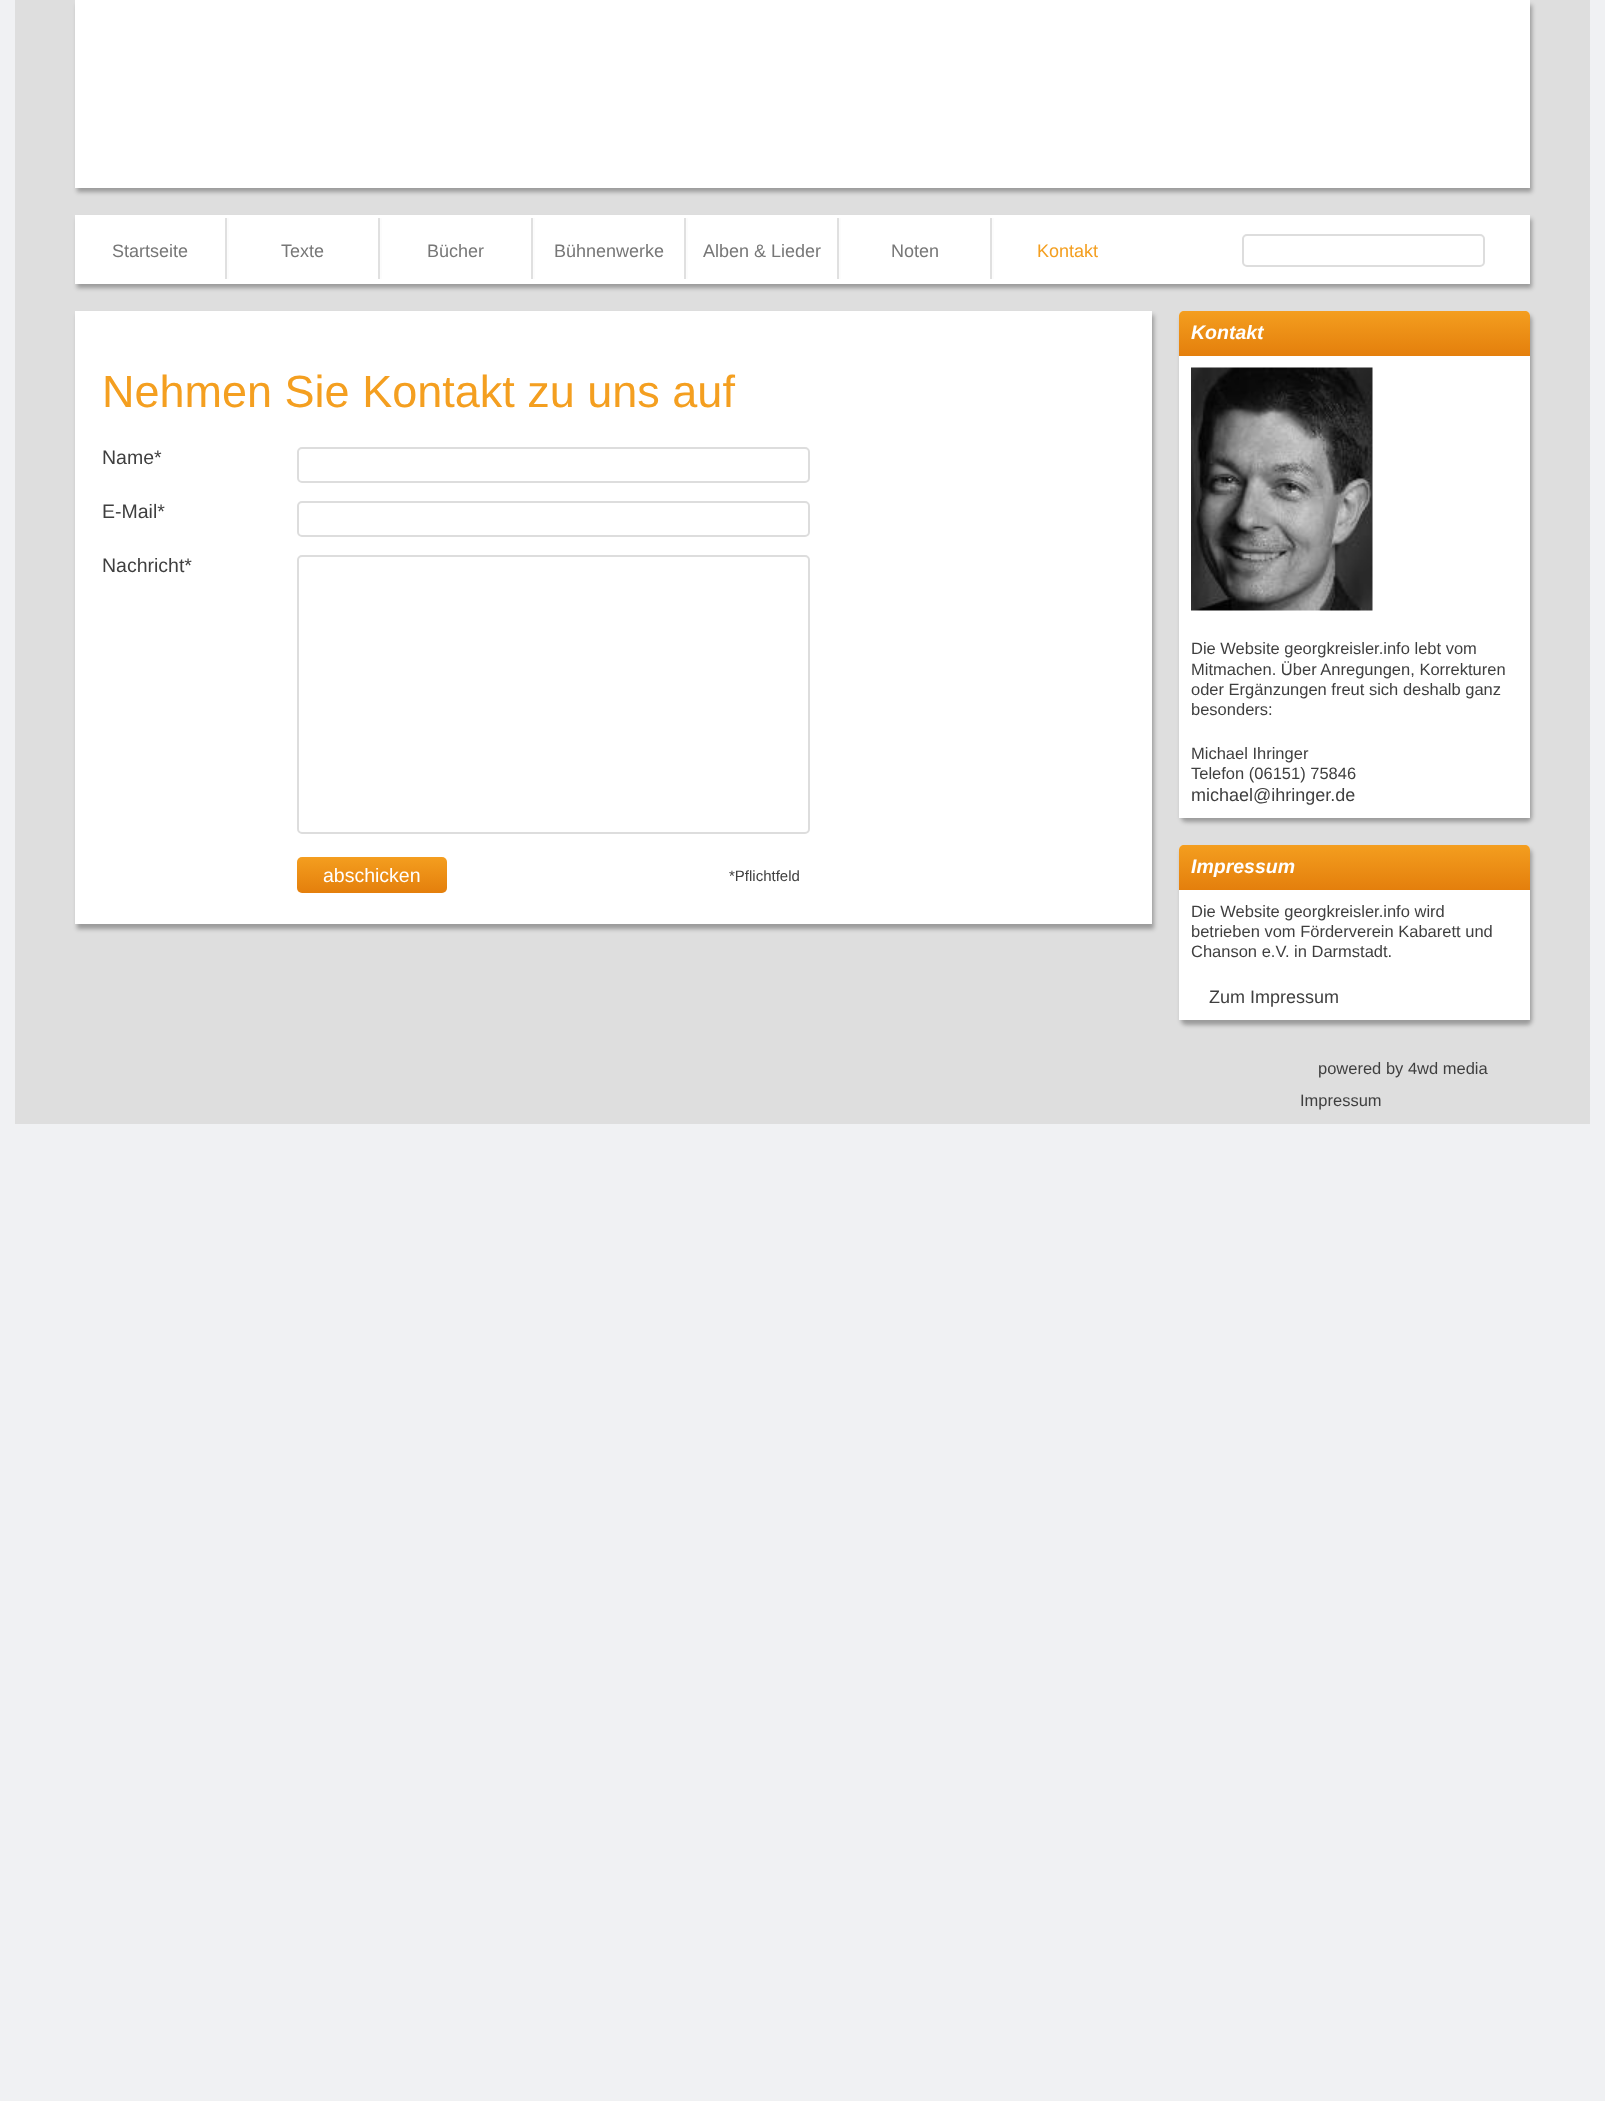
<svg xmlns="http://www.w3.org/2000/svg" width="1605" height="2101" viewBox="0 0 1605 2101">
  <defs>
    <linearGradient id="g1" gradientUnits="userSpaceOnUse" x1="297" y1="857" x2="297" y2="893"><stop offset="0" stop-color="rgb(244,158,31)"/><stop offset="1" stop-color="rgb(228,127,12)"/></linearGradient>
    <linearGradient id="g2" gradientUnits="userSpaceOnUse" x1="1179" y1="311" x2="1179" y2="356"><stop offset="0" stop-color="rgb(244,158,31)"/><stop offset="1" stop-color="rgb(228,127,12)"/></linearGradient>
    <linearGradient id="g3" gradientUnits="userSpaceOnUse" x1="1179" y1="845" x2="1179" y2="890"><stop offset="0" stop-color="rgb(244,158,31)"/><stop offset="1" stop-color="rgb(228,127,12)"/></linearGradient>
  </defs>
  <rect width="100%" height="100%" fill="rgb(240,241,243)"/>
  <rect x="15" y="0" width="1575" height="1124" fill="rgb(222,222,222)"/>
  <rect x="77" y="5" width="1455" height="187" fill="rgba(0,0,0,0.3)" filter="blur(2px)"/>
  <rect x="75" y="0" width="1455" height="188" fill="rgb(255,255,255)"/>
  <rect x="77" y="219" width="1455" height="69" fill="rgba(0,0,0,0.3)" filter="blur(2px)"/>
  <rect x="75" y="215" width="1455" height="69" fill="rgb(255,255,255)"/>
  <rect x="225" y="218" width="2" height="61" fill="rgb(224,224,224)"/>
  <text x="112" y="257" font-family="Liberation Sans" font-size="18" fill="rgb(119,119,119)">Startseite</text>
  <rect x="378" y="218" width="2" height="61" fill="rgb(224,224,224)"/>
  <rect x="227" y="218" width="2" height="61" fill="rgb(252,252,252)"/>
  <text x="281" y="257" font-family="Liberation Sans" font-size="18" fill="rgb(119,119,119)">Texte</text>
  <rect x="531" y="218" width="2" height="61" fill="rgb(224,224,224)"/>
  <rect x="380" y="218" width="2" height="61" fill="rgb(252,252,252)"/>
  <text x="427" y="257" font-family="Liberation Sans" font-size="18" fill="rgb(119,119,119)">Bücher</text>
  <rect x="684" y="218" width="2" height="61" fill="rgb(224,224,224)"/>
  <rect x="533" y="218" width="2" height="61" fill="rgb(252,252,252)"/>
  <text x="554" y="257" font-family="Liberation Sans" font-size="18" fill="rgb(119,119,119)">Bühnenwerke</text>
  <rect x="837" y="218" width="2" height="61" fill="rgb(224,224,224)"/>
  <rect x="686" y="218" width="2" height="61" fill="rgb(252,252,252)"/>
  <text x="703" y="257" font-family="Liberation Sans" font-size="18" fill="rgb(119,119,119)">Alben &amp; Lieder</text>
  <rect x="990" y="218" width="2" height="61" fill="rgb(224,224,224)"/>
  <rect x="839" y="218" width="2" height="61" fill="rgb(252,252,252)"/>
  <text x="891" y="257" font-family="Liberation Sans" font-size="18" fill="rgb(119,119,119)">Noten</text>
  <rect x="992" y="218" width="2" height="61" fill="rgb(252,252,252)"/>
  <text x="1037" y="257" font-family="Liberation Sans" font-size="18" fill="rgb(244,159,32)">Kontakt</text>
  <rect x="1243" y="235" width="241" height="31" rx="4" fill="none" stroke="rgb(221,221,221)" stroke-width="2"/>
  <rect x="77" y="315" width="1077" height="614" fill="rgba(0,0,0,0.3)" filter="blur(2px)"/>
  <rect x="75" y="311" width="1077" height="613" fill="rgb(255,255,255)"/>
  <text x="102" y="407" font-family="Liberation Sans" font-size="45" fill="rgb(244,159,32)">Nehmen Sie Kontakt zu uns auf</text>
  <text x="102" y="464" font-family="Liberation Sans" font-size="19.5" fill="rgb(63,63,63)">Name*</text>
  <rect x="298" y="448" width="511" height="34" rx="4" fill="none" stroke="rgb(221,221,221)" stroke-width="2"/>
  <text x="102" y="518" font-family="Liberation Sans" font-size="19.5" fill="rgb(63,63,63)">E-Mail*</text>
  <rect x="298" y="502" width="511" height="34" rx="4" fill="none" stroke="rgb(221,221,221)" stroke-width="2"/>
  <text x="102" y="572" font-family="Liberation Sans" font-size="19.5" fill="rgb(63,63,63)">Nachricht*</text>
  <rect x="298" y="556" width="511" height="277" rx="4" fill="none" stroke="rgb(221,221,221)" stroke-width="2"/>
  <rect x="297" y="857" width="150" height="36" rx="5" fill="url(#g1)"/>
  <text x="323" y="882" font-family="Liberation Sans" font-size="19.5" fill="rgb(255,255,255)">abschicken</text>
  <text x="729" y="881" font-family="Liberation Sans" font-size="15" fill="rgb(63,63,63)">*Pflichtfeld</text>
  <rect x="1181" y="315" width="351" height="507" rx="5" fill="rgba(0,0,0,0.3)" filter="blur(2px)"/>
  <path d="M1184 311H1525C1528 311 1530 313 1530 316V818H1179V316C1179 313 1181 311 1184 311Z" fill="rgb(255,255,255)"/>
  <path d="M1184 311H1525C1528 311 1530 313 1530 316V356H1179V316C1179 313 1181 311 1184 311Z" fill="url(#g2)"/>
  <text x="1191" y="339" font-family="Liberation Sans" font-size="19.5" font-weight="bold" font-style="italic" fill="rgb(255,255,255)">Kontakt</text>
  <image x="1191" y="367" width="182" height="244" href="pic1.png"/>
  <g font-family="Liberation Sans" font-size="16.5" fill="rgb(63,63,63)">
    <text>
      <tspan x="1191" y="654">Die Website georgkreisler.info lebt vom</tspan>
      <tspan x="1191" y="675">Mitmachen. Über Anregungen, Korrekturen</tspan>
      <tspan x="1191" y="695">oder Ergänzungen freut sich deshalb ganz</tspan>
      <tspan x="1191" y="715">besonders:</tspan>
    </text>
    <text>
      <tspan x="1191" y="759">Michael Ihringer</tspan>
      <tspan x="1191" y="779">Telefon (06151) 75846</tspan>
    </text>
  </g>
  <text x="1191" y="801" font-family="Liberation Sans" font-size="18" fill="rgb(63,63,63)">michael@ihringer.de</text>
  <rect x="1181" y="849" width="351" height="176" rx="5" fill="rgba(0,0,0,0.3)" filter="blur(2px)"/>
  <path d="M1184 845H1525C1528 845 1530 847 1530 850V1020H1179V850C1179 847 1181 845 1184 845Z" fill="rgb(255,255,255)"/>
  <path d="M1184 845H1525C1528 845 1530 847 1530 850V890H1179V850C1179 847 1181 845 1184 845Z" fill="url(#g3)"/>
  <text x="1191" y="873" font-family="Liberation Sans" font-size="19.5" font-weight="bold" font-style="italic" fill="rgb(255,255,255)">Impressum</text>
  <g font-family="Liberation Sans" font-size="16.5" fill="rgb(63,63,63)">
    <text>
      <tspan x="1191" y="917">Die Website georgkreisler.info wird</tspan>
      <tspan x="1191" y="937">betrieben vom Förderverein Kabarett und</tspan>
      <tspan x="1191" y="957">Chanson e.V. in Darmstadt.</tspan>
    </text>
  </g>
  <text x="1209" y="1003" font-family="Liberation Sans" font-size="18" fill="rgb(63,63,63)">Zum Impressum</text>
  <g font-family="Liberation Sans" font-size="16.5" fill="rgb(63,63,63)">
    <text x="1318" y="1074">powered by 4wd media</text>
    <text x="1300" y="1106">Impressum</text>
  </g>
</svg>
